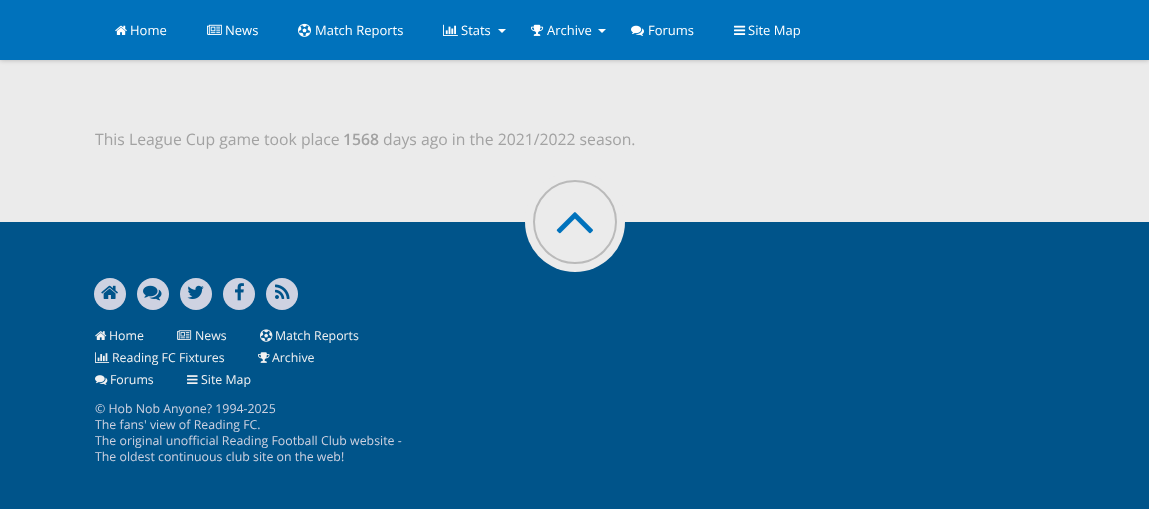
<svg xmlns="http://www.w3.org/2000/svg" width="1149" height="509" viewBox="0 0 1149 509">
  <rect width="100%" height="100%" fill="rgb(235,235,235)"/>
  <rect x="0" y="0" width="1149" height="60" fill="rgba(3,2,2,0.25)" filter="blur(2.5px)"/>
  <rect x="0" y="0" width="1149" height="60" fill="rgb(0,114,188)"/>
  <image x="115" y="25" width="12" height="10" href="pic1.png"/>
  <text x="130" y="35" font-family="Open Sans" font-size="13" fill="rgb(255,255,255)">Home</text>
  <image x="207" y="24" width="15" height="11" href="pic2.png"/>
  <text x="225" y="35" font-family="Open Sans" font-size="13" fill="rgb(255,255,255)">News</text>
  <image x="298" y="23" width="13" height="14" href="pic3.png"/>
  <text x="315" y="35" font-family="Open Sans" font-size="13" fill="rgb(255,255,255)">Match Reports</text>
  <image x="443" y="24" width="15" height="12" href="pic4.png"/>
  <text x="461" y="35" font-family="Open Sans" font-size="13" fill="rgb(255,255,255)">Stats</text>
  <path d="M498 29H506L502 33Z" fill="rgb(255,255,255)"/>
  <image x="531" y="24" width="13" height="12" href="pic5.png"/>
  <text x="547" y="35" font-family="Open Sans" font-size="13" fill="rgb(255,255,255)">Archive</text>
  <path d="M598 29H606L602 33Z" fill="rgb(255,255,255)"/>
  <image x="631" y="25" width="13" height="11" href="pic6.png"/>
  <text x="648" y="35" font-family="Open Sans" font-size="13" fill="rgb(255,255,255)">Forums</text>
  <image x="734" y="25" width="12" height="10" href="pic7.png"/>
  <text x="748" y="35" font-family="Open Sans" font-size="13" fill="rgb(255,255,255)">Site Map</text>
  <text x="95" y="145" font-family="Open Sans" font-size="15.75" fill="rgb(162,162,162)">This League Cup game took place</text>
  <text x="343" y="145" font-family="Open Sans" font-size="15.75" font-weight="600" fill="rgb(162,162,162)">1568</text>
  <text x="383" y="145" font-family="Open Sans" font-size="15.75" fill="rgb(162,162,162)">days ago in the 2021/2022 season.</text>
  <rect x="0" y="222" width="1149" height="287" fill="rgb(0,84,138)"/>
  <circle cx="575" cy="222" r="50" fill="rgb(235,235,235)"/>
  <image x="556" y="212" width="37" height="22" href="pic8.png"/>
  <circle cx="575" cy="222" r="41" fill="none" stroke="rgb(186,186,186)" stroke-width="2"/>
  <circle cx="110" cy="294" r="16" fill="rgb(206,210,225)"/>
  <image x="101" y="285" width="17" height="14" href="pic9.png"/>
  <circle cx="153" cy="294" r="16" fill="rgb(206,210,225)"/>
  <image x="143" y="285" width="19" height="16" href="pic10.png"/>
  <circle cx="196" cy="294" r="16" fill="rgb(206,210,225)"/>
  <image x="187" y="285" width="17" height="14" href="pic11.png"/>
  <circle cx="239" cy="294" r="16" fill="rgb(206,210,225)"/>
  <image x="235" y="283" width="9" height="18" href="pic12.png"/>
  <circle cx="282" cy="294" r="16" fill="rgb(206,210,225)"/>
  <image x="275" y="284" width="15" height="15" href="pic13.png"/>
  <image x="95" y="331" width="12" height="9" href="pic14.png"/>
  <text x="109" y="340" font-family="Open Sans" font-size="12.35" fill="rgb(242,242,242)">Home</text>
  <image x="177" y="330" width="15" height="10" href="pic15.png"/>
  <text x="195" y="340" font-family="Open Sans" font-size="12.35" fill="rgb(242,242,242)">News</text>
  <image x="260" y="329" width="13" height="13" href="pic16.png"/>
  <text x="275" y="340" font-family="Open Sans" font-size="12.35" fill="rgb(242,242,242)">Match Reports</text>
  <image x="95" y="352" width="15" height="11" href="pic17.png"/>
  <text x="112" y="362" font-family="Open Sans" font-size="12.35" fill="rgb(242,242,242)">Reading FC Fixtures</text>
  <image x="258" y="352" width="12" height="11" href="pic18.png"/>
  <text x="272" y="362" font-family="Open Sans" font-size="12.35" fill="rgb(242,242,242)">Archive</text>
  <image x="95" y="375" width="13" height="10" href="pic19.png"/>
  <text x="110" y="384" font-family="Open Sans" font-size="12.35" fill="rgb(242,242,242)">Forums</text>
  <image x="187" y="375" width="11" height="9" href="pic20.png"/>
  <text x="201" y="384" font-family="Open Sans" font-size="12.35" fill="rgb(242,242,242)">Site Map</text>
  <g font-family="Open Sans" font-size="12.35" fill="rgb(206,210,225)">
    <text>
      <tspan x="95" y="413">© Hob Nob Anyone? 1994-2025</tspan>
      <tspan x="95" y="429">The fans' view of Reading FC.</tspan>
      <tspan x="95" y="445">The original unofficial Reading Football Club website -</tspan>
      <tspan x="95" y="461">The oldest continuous club site on the web!</tspan>
    </text>
  </g>
</svg>
